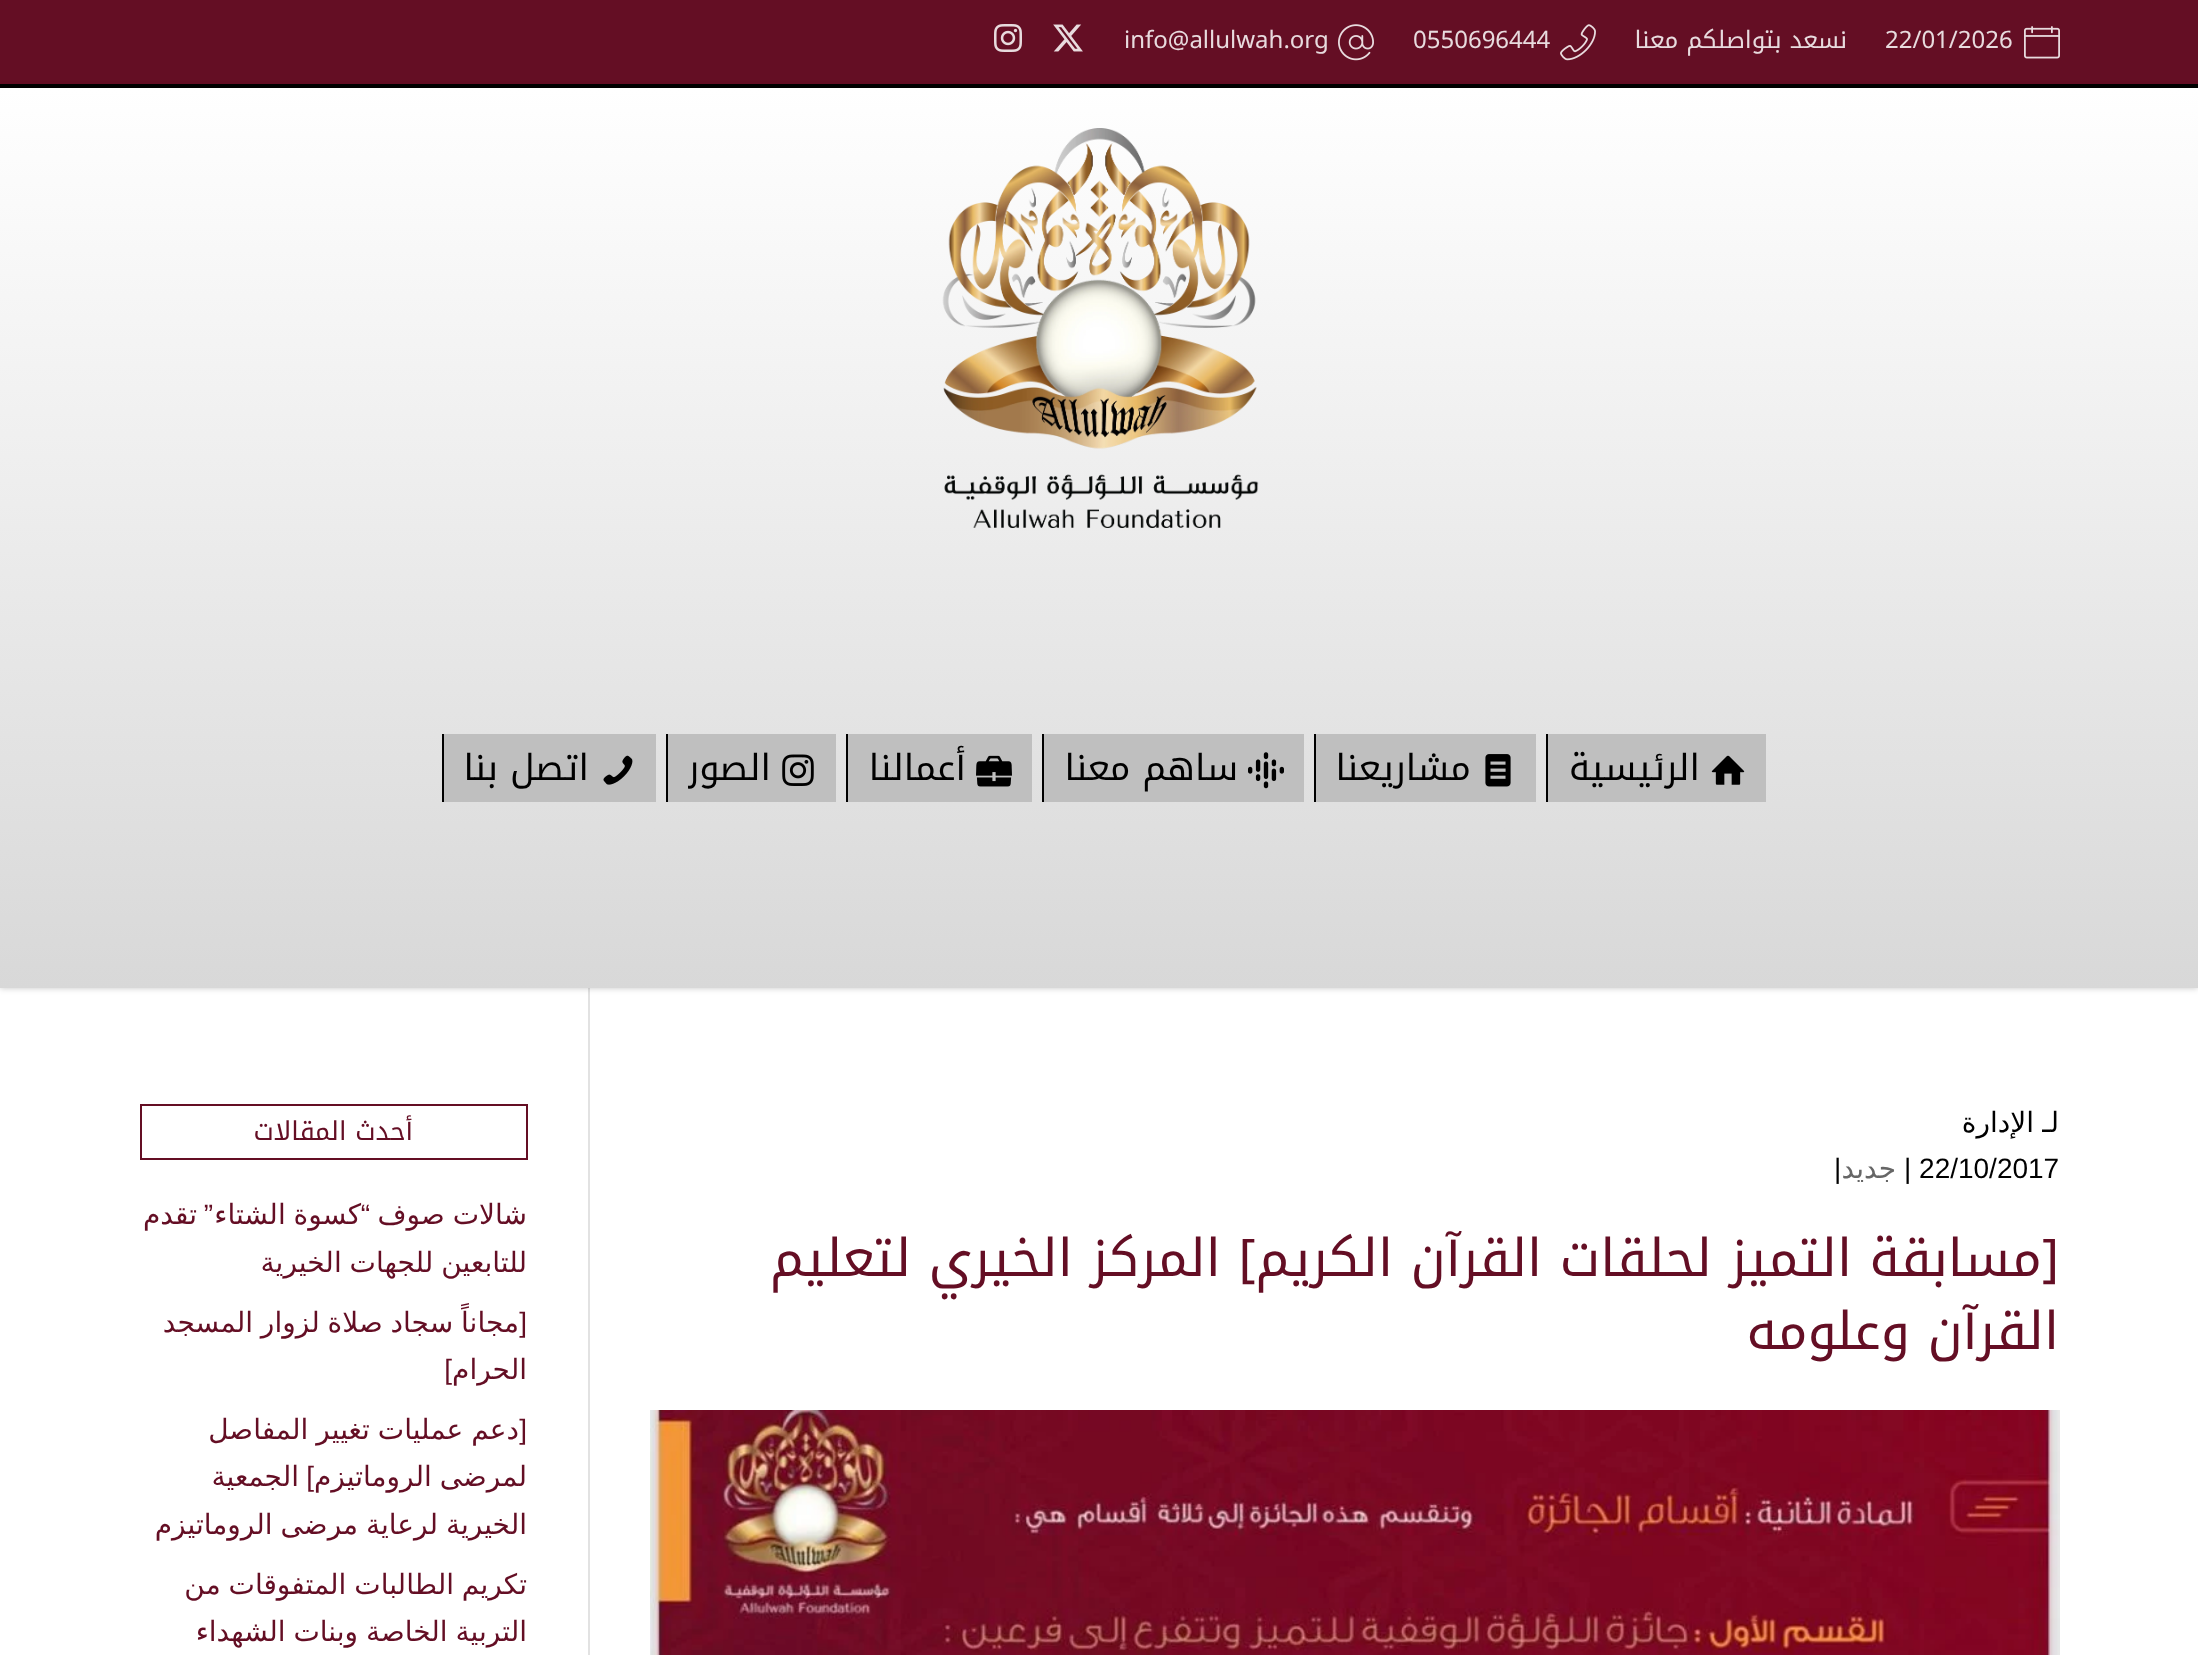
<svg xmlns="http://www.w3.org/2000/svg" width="2198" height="1655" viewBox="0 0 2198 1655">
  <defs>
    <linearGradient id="g1" gradientUnits="userSpaceOnUse" x1="1099" y1="88" x2="1099" y2="988"><stop offset="0" stop-color="rgb(255,255,255)"/><stop offset="1" stop-color="rgb(216,216,216)"/></linearGradient>
    <clipPath id="clip1"><rect x="688" y="734" width="82" height="68"/></clipPath>
  </defs>
  <rect width="100%" height="100%" fill="rgb(255,255,255)"/>
  <rect x="0" y="0" width="2198" height="84" fill="rgb(100,14,36)"/>
  <rect x="0" y="84" width="2198" height="4" fill="rgb(0,0,0)"/>
  <image x="2024" y="26" width="36" height="33" href="pic1.png"/>
  <text x="1885" y="48" font-family="Noto Kufi Arabic" font-size="24" fill="rgb(232,219,222)">22/01/2026</text>
  <text x="1847" y="48" font-family="Noto Kufi Arabic" font-size="24" direction="rtl" fill="rgb(232,219,222)">نسعد بتواصلكم معنا</text>
  <image x="1560" y="24" width="36" height="37" href="pic2.png"/>
  <text x="1413" y="48" font-family="Noto Kufi Arabic" font-size="24" fill="rgb(232,219,222)">0550696444</text>
  <image x="1338" y="24" width="36" height="37" href="pic3.png"/>
  <text x="1124" y="48" font-family="Noto Kufi Arabic" font-size="24" fill="rgb(232,219,222)">info@allulwah.org</text>
  <image x="1053" y="24" width="30" height="28" href="pic4.png"/>
  <image x="994" y="24" width="28" height="28" href="pic5.png"/>
  <rect x="588" y="988" width="2" height="667" fill="rgb(226,226,226)"/>
  <rect x="0" y="88" width="2198" height="900" fill="rgba(0,0,0,0.22)" filter="blur(3px)"/>
  <rect x="0" y="88" width="2198" height="900" fill="url(#g1)"/>
  <image x="942" y="128" width="317" height="400" href="pic6.png"/>
  <rect x="1548" y="734" width="218" height="68" fill="rgb(191,191,191)"/>
  <rect x="1546" y="734" width="2" height="68" fill="rgb(0,0,0)"/>
  <image x="1711" y="755" width="34" height="30" href="pic7.png"/>
  <text x="1700" y="780" font-family="Noto Kufi Arabic" font-size="36" direction="rtl" fill="rgb(0,0,0)">الرئيسية</text>
  <rect x="1316" y="734" width="220" height="68" fill="rgb(191,191,191)"/>
  <rect x="1314" y="734" width="2" height="68" fill="rgb(0,0,0)"/>
  <image x="1485" y="754" width="26" height="33" href="pic8.png"/>
  <text x="1471" y="780" font-family="Noto Kufi Arabic" font-size="36" direction="rtl" fill="rgb(0,0,0)">مشاريعنا</text>
  <rect x="1044" y="734" width="260" height="68" fill="rgb(191,191,191)"/>
  <rect x="1042" y="734" width="2" height="68" fill="rgb(0,0,0)"/>
  <image x="1248" y="752" width="36" height="37" href="pic9.png"/>
  <text x="1238" y="780" font-family="Noto Kufi Arabic" font-size="36" direction="rtl" fill="rgb(0,0,0)">ساهم معنا</text>
  <rect x="848" y="734" width="184" height="68" fill="rgb(191,191,191)"/>
  <rect x="846" y="734" width="2" height="68" fill="rgb(0,0,0)"/>
  <image x="976" y="755" width="36" height="32" href="pic10.png"/>
  <text x="966" y="780" font-family="Noto Kufi Arabic" font-size="36" direction="rtl" fill="rgb(0,0,0)">أعمالنا</text>
  <rect x="668" y="734" width="168" height="68" fill="rgb(191,191,191)"/>
  <rect x="666" y="734" width="2" height="68" fill="rgb(0,0,0)"/>
  <image x="782" y="754" width="32" height="32" href="pic11.png"/>
  <g clip-path="url(#clip1)">
    <text x="771" y="780" font-family="Noto Kufi Arabic" font-size="36" direction="rtl" fill="rgb(0,0,0)">الصور</text>
  </g>
  <rect x="444" y="734" width="212" height="68" fill="rgb(191,191,191)"/>
  <rect x="442" y="734" width="2" height="68" fill="rgb(0,0,0)"/>
  <image x="603" y="755" width="30" height="30" href="pic12.png"/>
  <text x="589" y="780" font-family="Noto Kufi Arabic" font-size="36" direction="rtl" fill="rgb(0,0,0)">اتصل بنا</text>
  <g font-family="DejaVu Sans" font-size="28" direction="rtl" fill="rgb(0,0,0)">
    <text x="2059" y="1132">لـ</text>
    <text x="2034" y="1132">الإدارة</text>
  </g>
  <text x="1904" y="1178" font-family="Liberation Sans" font-size="28" fill="rgb(0,0,0)">| 22/10/2017</text>
  <text x="1896" y="1178" font-family="DejaVu Sans" font-size="28" direction="rtl" fill="rgb(102,102,102)">جديد</text>
  <text x="1834" y="1178" font-family="Liberation Sans" font-size="28" fill="rgb(0,0,0)">|</text>
  <g font-family="Noto Kufi Arabic" font-size="52" direction="rtl" fill="rgb(100,14,36)">
    <text>
      <tspan x="2059" y="1276">[مسابقة التميز لحلقات القرآن الكريم] المركز الخيري لتعليم</tspan>
      <tspan x="2059" y="1349">القرآن وعلومه</tspan>
    </text>
  </g>
  <image x="650" y="1410" width="1410" height="245" href="pic13.png"/>
  <rect x="141" y="1105" width="386" height="54" fill="none" stroke="rgb(100,14,36)" stroke-width="2"/>
  <text x="413" y="1140" font-family="Noto Kufi Arabic" font-size="26" direction="rtl" fill="rgb(100,14,36)">أحدث المقالات</text>
  <g font-family="DejaVu Sans" font-size="28" direction="rtl" fill="rgb(100,14,36)">
    <text x="527" y="1224" word-spacing="-1">شالات صوف</text>
    <text x="361" y="1224" word-spacing="-1">كسوة الشتاء</text>
  </g>
  <g font-family="Liberation Sans" font-size="28" direction="rtl" fill="rgb(100,14,36)">
    <text x="370" y="1224">“</text>
    <text x="213" y="1224">”</text>
  </g>
  <g font-family="DejaVu Sans" font-size="28" direction="rtl" fill="rgb(100,14,36)">
    <text x="197" y="1224">تقدم</text>
    <text x="527" y="1272" word-spacing="-1">للتابعين للجهات الخيرية</text>
    <text x="519" y="1332" word-spacing="-1">مجاناً سجاد صلاة لزوار المسجد</text>
  </g>
  <text x="527" y="1332" font-family="Liberation Sans" font-size="28" direction="rtl" fill="rgb(100,14,36)">[</text>
  <text x="527" y="1379" font-family="DejaVu Sans" font-size="28" direction="rtl" fill="rgb(100,14,36)">الحرام</text>
  <g font-family="Liberation Sans" font-size="28" direction="rtl" fill="rgb(100,14,36)">
    <text x="452" y="1379">]</text>
    <text x="527" y="1439">[</text>
  </g>
  <g font-family="DejaVu Sans" font-size="28" direction="rtl" fill="rgb(100,14,36)">
    <text x="519" y="1439" word-spacing="-1">دعم عمليات تغيير المفاصل</text>
    <text x="527" y="1486" word-spacing="-1">لمرضى الروماتيزم</text>
  </g>
  <text x="314" y="1486" font-family="Liberation Sans" font-size="28" direction="rtl" fill="rgb(100,14,36)">]</text>
  <g font-family="DejaVu Sans" font-size="28" direction="rtl" fill="rgb(100,14,36)">
    <text x="299" y="1486">الجمعية</text>
    <text x="527" y="1534" word-spacing="-1">الخيرية لرعاية مرضى الروماتيزم</text>
    <text>
      <tspan x="527" y="1594" word-spacing="-1">تكريم الطالبات المتفوقات من</tspan>
      <tspan x="527" y="1641" word-spacing="-1">التربية الخاصة وبنات الشهداء</tspan>
    </text>
  </g>
</svg>
